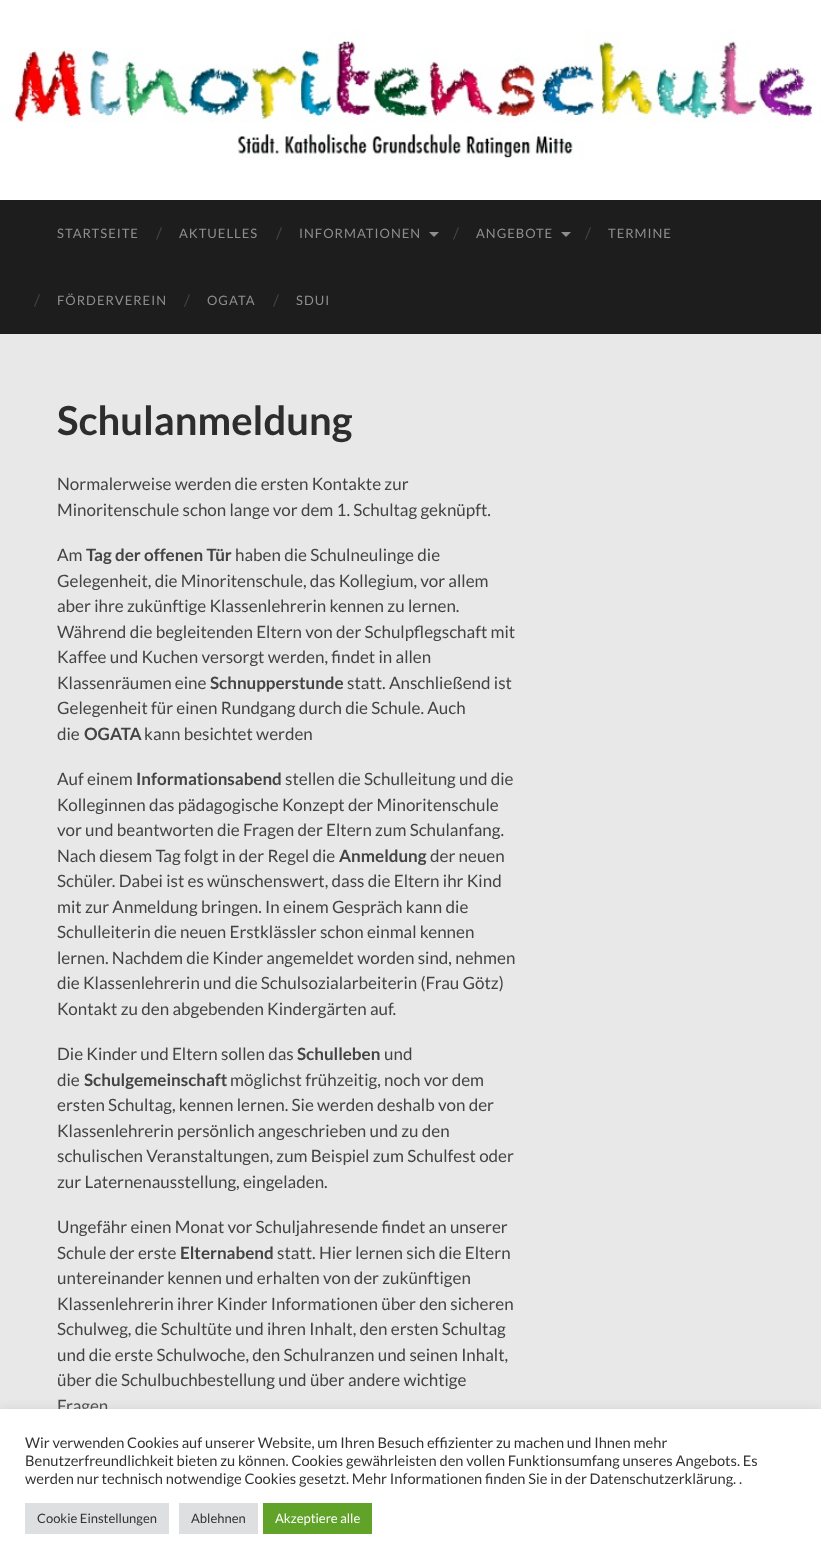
<svg xmlns="http://www.w3.org/2000/svg" width="821" height="1564" viewBox="0 0 821 1564">
  <rect width="100%" height="100%" fill="rgb(232,232,232)"/>
  <image x="0" y="0" width="821" height="200" href="pic1.png"/>
  <rect x="0" y="200" width="821" height="134" fill="rgb(29,29,29)"/>
  <text x="57" y="238" font-family="Lato" font-size="13" letter-spacing="1" fill="rgb(142,142,142)">STARTSEITE</text>
  <text x="156" y="239" font-family="Lato" font-size="16" fill="rgb(68,68,68)">/</text>
  <text x="179" y="238" font-family="Lato" font-size="13" letter-spacing="1" fill="rgb(142,142,142)">AKTUELLES</text>
  <text x="276" y="239" font-family="Lato" font-size="16" fill="rgb(68,68,68)">/</text>
  <text x="299" y="238" font-family="Lato" font-size="13" letter-spacing="1" fill="rgb(142,142,142)">INFORMATIONEN</text>
  <path d="M429 232H439L434 237Z" fill="rgb(142,142,142)"/>
  <text x="453" y="239" font-family="Lato" font-size="16" fill="rgb(68,68,68)">/</text>
  <text x="476" y="238" font-family="Lato" font-size="13" letter-spacing="1" fill="rgb(142,142,142)">ANGEBOTE</text>
  <path d="M561 232H571L566 237Z" fill="rgb(142,142,142)"/>
  <text x="585" y="239" font-family="Lato" font-size="16" fill="rgb(68,68,68)">/</text>
  <text x="608" y="238" font-family="Lato" font-size="13" letter-spacing="1" fill="rgb(142,142,142)">TERMINE</text>
  <text x="34" y="306" font-family="Lato" font-size="16" fill="rgb(68,68,68)">/</text>
  <text x="57" y="305" font-family="Lato" font-size="13" letter-spacing="1" fill="rgb(142,142,142)">FÖRDERVEREIN</text>
  <text x="184" y="306" font-family="Lato" font-size="16" fill="rgb(68,68,68)">/</text>
  <text x="207" y="305" font-family="Lato" font-size="13" letter-spacing="1" fill="rgb(142,142,142)">OGATA</text>
  <text x="273" y="306" font-family="Lato" font-size="16" fill="rgb(68,68,68)">/</text>
  <text x="296" y="305" font-family="Lato" font-size="13" letter-spacing="1" fill="rgb(142,142,142)">SDUI</text>
  <text x="57" y="435" font-family="Lato" font-size="40" font-weight="bold" fill="rgb(45,45,45)">Schulanmeldung</text>
  <g font-family="Lato" font-size="17" fill="rgb(68,68,68)">
    <text>
      <tspan x="57" y="490">Normalerweise werden die ersten Kontakte zur</tspan>
      <tspan x="57" y="516">Minoritenschule schon lange vor dem 1. Schultag geknüpft.</tspan>
    </text>
    <text x="57" y="561">Am</text>
  </g>
  <text x="86" y="561" font-family="Lato" font-size="17" font-weight="bold" fill="rgb(68,68,68)">Tag der offenen Tür</text>
  <g font-family="Lato" font-size="17" fill="rgb(68,68,68)">
    <text x="235" y="561">haben die Schulneulinge die</text>
    <text>
      <tspan x="57" y="587">Gelegenheit, die Minoritenschule, das Kollegium, vor allem</tspan>
      <tspan x="57" y="612">aber ihre zukünftige Klassenlehrerin kennen zu lernen.</tspan>
      <tspan x="57" y="638">Während die begleitenden Eltern von der Schulpflegschaft mit</tspan>
      <tspan x="57" y="663">Kaffee und Kuchen versorgt werden, findet in allen</tspan>
      <tspan x="57" y="689">Klassenräumen eine</tspan>
    </text>
  </g>
  <text x="210" y="689" font-family="Lato" font-size="17" font-weight="bold" fill="rgb(68,68,68)">Schnupperstunde</text>
  <g font-family="Lato" font-size="17" fill="rgb(68,68,68)">
    <text x="347" y="689">statt. Anschließend ist</text>
    <text>
      <tspan x="57" y="714">Gelegenheit für einen Rundgang durch die Schule. Auch</tspan>
      <tspan x="57" y="740">die</tspan>
    </text>
  </g>
  <text x="84" y="740" font-family="Lato" font-size="17" font-weight="bold" fill="rgb(68,68,68)">OGATA</text>
  <g font-family="Lato" font-size="17" fill="rgb(68,68,68)">
    <text x="144" y="740">kann besichtet werden</text>
    <text x="57" y="785">Auf einem</text>
  </g>
  <text x="136" y="785" font-family="Lato" font-size="17" font-weight="bold" fill="rgb(68,68,68)">Informationsabend</text>
  <g font-family="Lato" font-size="17" fill="rgb(68,68,68)">
    <text x="285" y="785">stellen die Schulleitung und die</text>
    <text>
      <tspan x="57" y="811">Kolleginnen das pädagogische Konzept der Minoritenschule</tspan>
      <tspan x="57" y="836">vor und beantworten die Fragen der Eltern zum Schulanfang.</tspan>
      <tspan x="57" y="862">Nach diesem Tag folgt in der Regel die</tspan>
    </text>
  </g>
  <text x="339" y="862" font-family="Lato" font-size="17" font-weight="bold" fill="rgb(68,68,68)">Anmeldung</text>
  <g font-family="Lato" font-size="17" fill="rgb(68,68,68)">
    <text x="430" y="862">der neuen</text>
    <text>
      <tspan x="57" y="887">Schüler. Dabei ist es wünschenswert, dass die Eltern ihr Kind</tspan>
      <tspan x="57" y="913">mit zur Anmeldung bringen. In einem Gespräch kann die</tspan>
      <tspan x="57" y="938">Schulleiterin die neuen Erstklässler schon einmal kennen</tspan>
      <tspan x="57" y="964">lernen. Nachdem die Kinder angemeldet worden sind, nehmen</tspan>
      <tspan x="57" y="989">die Klassenlehrerin und die Schulsozialarbeiterin (Frau Götz)</tspan>
      <tspan x="57" y="1015">Kontakt zu den abgebenden Kindergärten auf.</tspan>
    </text>
    <text x="57" y="1060">Die Kinder und Eltern sollen das</text>
  </g>
  <text x="297" y="1060" font-family="Lato" font-size="17" font-weight="bold" fill="rgb(68,68,68)">Schulleben</text>
  <g font-family="Lato" font-size="17" fill="rgb(68,68,68)">
    <text x="384" y="1060">und</text>
    <text x="57" y="1086">die</text>
  </g>
  <text x="84" y="1086" font-family="Lato" font-size="17" font-weight="bold" fill="rgb(68,68,68)">Schulgemeinschaft</text>
  <g font-family="Lato" font-size="17" fill="rgb(68,68,68)">
    <text x="230" y="1086">möglichst frühzeitig, noch vor dem</text>
    <text>
      <tspan x="57" y="1111">ersten Schultag, kennen lernen. Sie werden deshalb von der</tspan>
      <tspan x="57" y="1137">Klassenlehrerin persönlich angeschrieben und zu den</tspan>
      <tspan x="57" y="1162">schulischen Veranstaltungen, zum Beispiel zum Schulfest oder</tspan>
      <tspan x="57" y="1188">zur Laternenausstellung, eingeladen.</tspan>
    </text>
    <text>
      <tspan x="57" y="1233">Ungefähr einen Monat vor Schuljahresende findet an unserer</tspan>
      <tspan x="57" y="1259">Schule der erste</tspan>
    </text>
  </g>
  <text x="180" y="1259" font-family="Lato" font-size="17" font-weight="bold" fill="rgb(68,68,68)">Elternabend</text>
  <g font-family="Lato" font-size="17" fill="rgb(68,68,68)">
    <text x="277" y="1259">statt. Hier lernen sich die Eltern</text>
    <text>
      <tspan x="57" y="1284">untereinander kennen und erhalten von der zukünftigen</tspan>
      <tspan x="57" y="1310">Klassenlehrerin ihrer Kinder Informationen über den sicheren</tspan>
      <tspan x="57" y="1335">Schulweg, die Schultüte und ihren Inhalt, den ersten Schultag</tspan>
      <tspan x="57" y="1361">und die erste Schulwoche, den Schulranzen und seinen Inhalt,</tspan>
      <tspan x="57" y="1386">über die Schulbuchbestellung und über andere wichtige</tspan>
      <tspan x="57" y="1412">Fragen</tspan>
    </text>
  </g>
  <rect x="0" y="1408" width="821" height="155" fill="rgba(172,171,171,0.3)" filter="blur(5px)"/>
  <rect x="0" y="1409" width="821" height="155" fill="rgb(255,255,255)"/>
  <g font-family="Lato" font-size="14.65" fill="rgb(51,51,51)">
    <text>
      <tspan x="25" y="1448">Wir verwenden Cookies auf unserer Website, um Ihren Besuch effizienter zu machen und Ihnen mehr</tspan>
      <tspan x="25" y="1466">Benutzerfreundlichkeit bieten zu können. Cookies gewährleisten den vollen Funktionsumfang unseres Angebots. Es</tspan>
      <tspan x="25" y="1484">werden nur technisch notwendige Cookies gesetzt. Mehr Informationen finden Sie in der Datenschutzerklärung. .</tspan>
    </text>
  </g>
  <rect x="25" y="1503" width="144" height="31" fill="rgb(222,223,224)"/>
  <text x="37" y="1523" font-family="Lato" font-size="13" fill="rgb(51,51,51)">Cookie Einstellungen</text>
  <rect x="179" y="1503" width="79" height="31" fill="rgb(222,223,224)"/>
  <text x="191" y="1523" font-family="Lato" font-size="13" fill="rgb(51,51,51)">Ablehnen</text>
  <rect x="263" y="1503" width="109" height="31" fill="rgb(97,162,41)"/>
  <text x="275" y="1523" font-family="Lato" font-size="13" fill="rgb(255,255,255)">Akzeptiere alle</text>
</svg>
